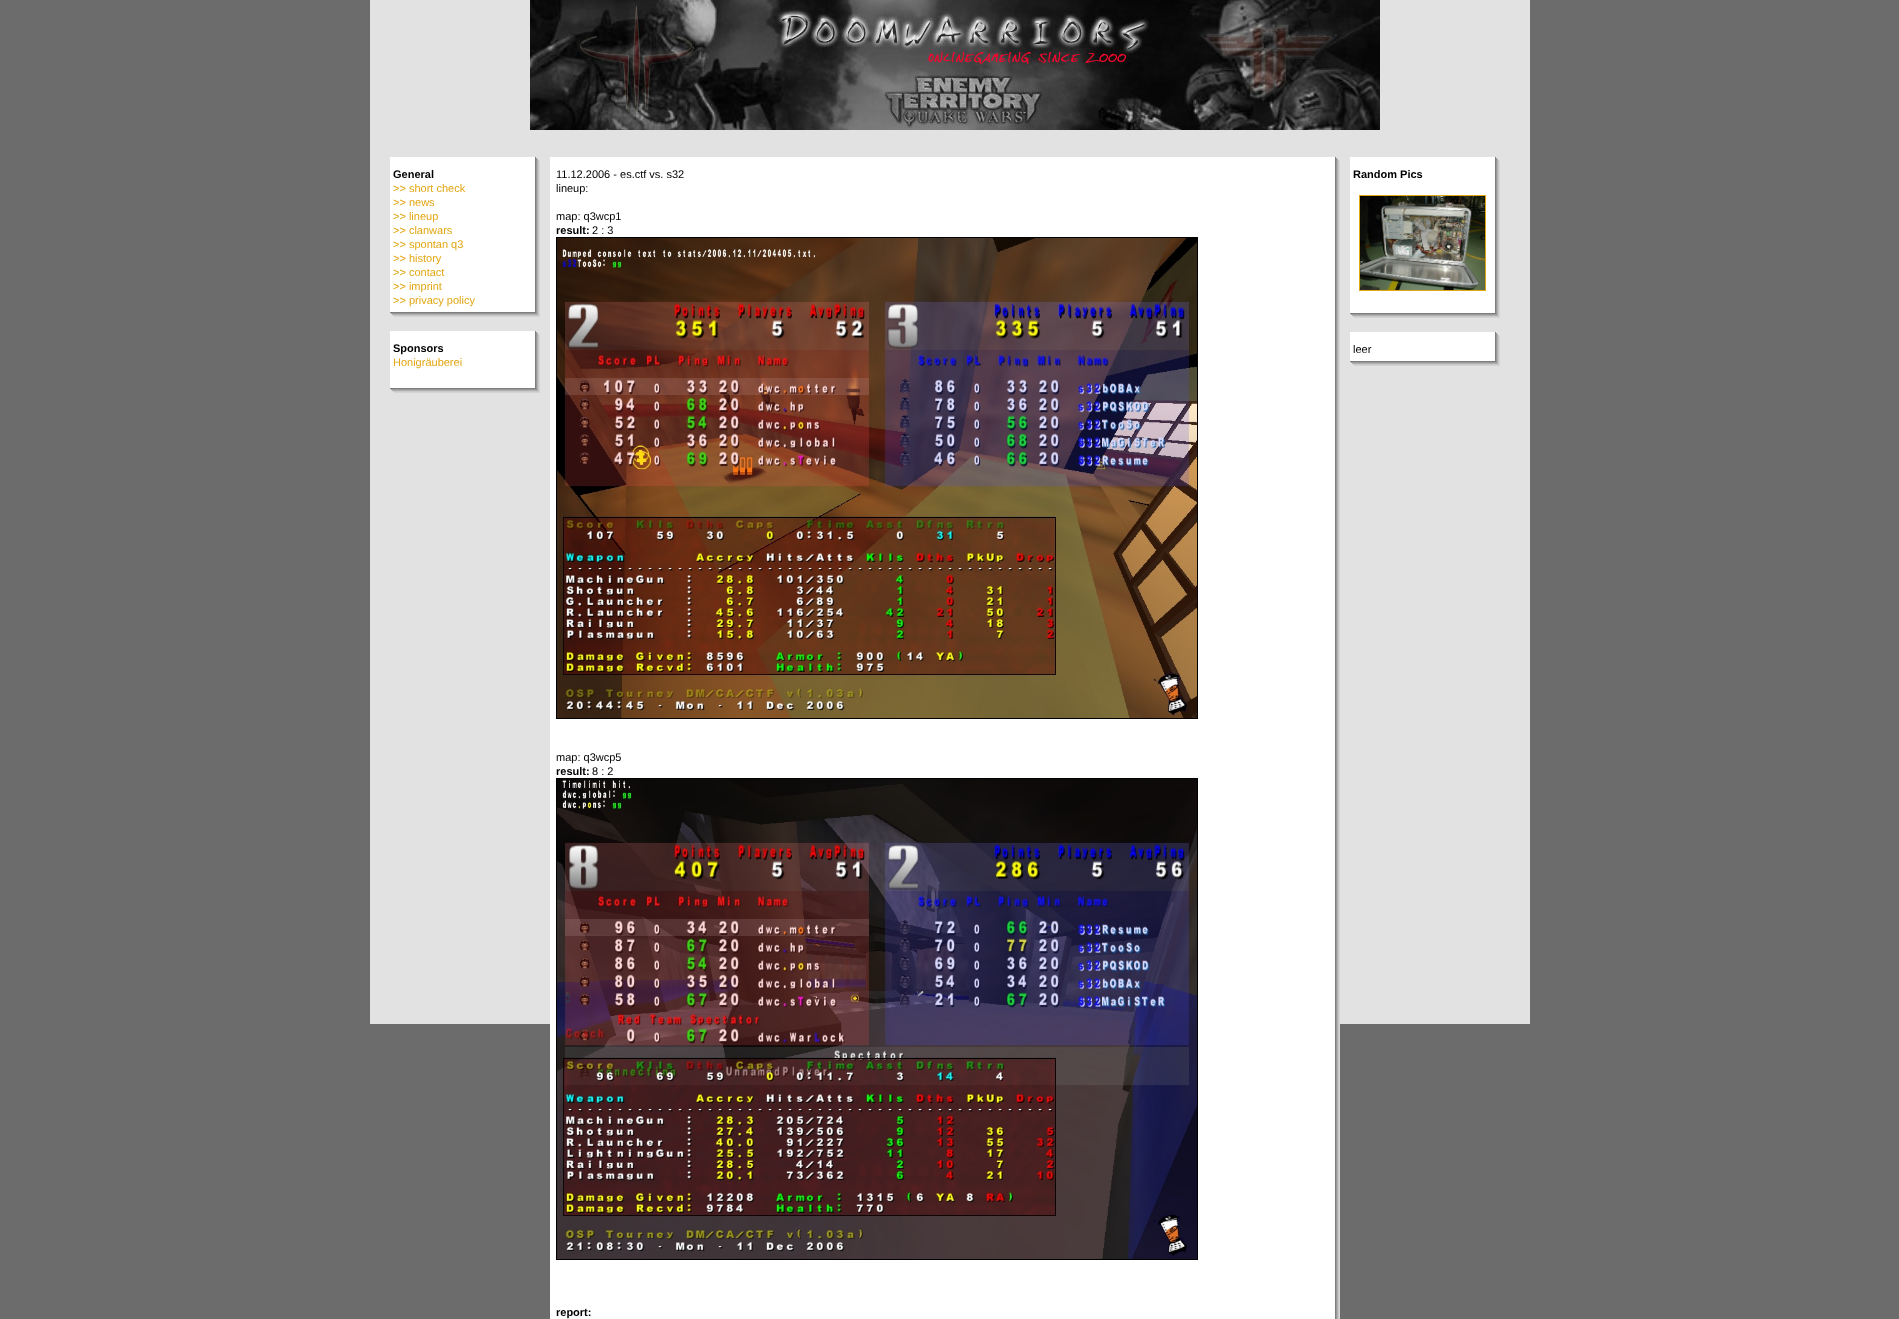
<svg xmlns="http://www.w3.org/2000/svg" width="1899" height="1319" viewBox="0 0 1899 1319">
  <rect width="100%" height="100%" fill="rgb(108,108,108)"/>
  <rect x="370" y="0" width="1160" height="1024" fill="rgb(226,226,226)"/>
  <image x="530" y="0" width="850" height="130" href="pic1.png"/>
  <image x="390" y="157" width="150" height="10" href="pic2.png"/>
  <image x="390" y="167" width="150" height="140" href="pic3.png"/>
  <text x="393" y="178" font-family="Liberation Sans" font-size="11" font-weight="bold" fill="rgb(0,0,0)">General</text>
  <g font-family="Liberation Sans" font-size="11" fill="rgb(226,166,18)">
    <text>
      <tspan x="393" y="192">&gt;&gt; short check</tspan>
      <tspan x="393" y="206">&gt;&gt; news</tspan>
      <tspan x="393" y="220">&gt;&gt; lineup</tspan>
      <tspan x="393" y="234">&gt;&gt; clanwars</tspan>
      <tspan x="393" y="248">&gt;&gt; spontan q3</tspan>
      <tspan x="393" y="262">&gt;&gt; history</tspan>
      <tspan x="393" y="276">&gt;&gt; contact</tspan>
      <tspan x="393" y="290">&gt;&gt; imprint</tspan>
      <tspan x="393" y="304">&gt;&gt; privacy policy</tspan>
    </text>
  </g>
  <image x="390" y="307" width="150" height="10" href="pic4.png"/>
  <image x="390" y="331" width="150" height="10" href="pic2.png"/>
  <image x="390" y="341" width="150" height="42" href="pic5.png"/>
  <text x="393" y="352" font-family="Liberation Sans" font-size="11" font-weight="bold" fill="rgb(0,0,0)">Sponsors</text>
  <text x="393" y="366" font-family="Liberation Sans" font-size="11" fill="rgb(226,166,18)">Honigräuberei</text>
  <image x="390" y="383" width="150" height="10" href="pic4.png"/>
  <image x="550" y="157" width="790" height="10" href="pic6.png"/>
  <image x="550" y="167" width="790" height="1152" href="pic7.png"/>
  <g font-family="Liberation Sans" font-size="11" fill="rgb(0,0,0)">
    <text>
      <tspan x="556" y="178">11.12.2006 - es.ctf vs. s32</tspan>
      <tspan x="556" y="192">lineup:</tspan>
    </text>
    <text x="556" y="220">map: q3wcp1</text>
  </g>
  <text x="556" y="234" font-family="Liberation Sans" font-size="11" font-weight="bold" fill="rgb(0,0,0)">result:</text>
  <text x="592" y="234" font-family="Liberation Sans" font-size="11" fill="rgb(0,0,0)">2 : 3</text>
  <rect x="556.5" y="237.5" width="641" height="481" fill="none" stroke="rgb(0,0,0)"/>
  <image x="557" y="238" width="640" height="480" href="pic8.png"/>
  <text x="556" y="761" font-family="Liberation Sans" font-size="11" fill="rgb(0,0,0)">map: q3wcp5</text>
  <text x="556" y="775" font-family="Liberation Sans" font-size="11" font-weight="bold" fill="rgb(0,0,0)">result:</text>
  <text x="592" y="775" font-family="Liberation Sans" font-size="11" fill="rgb(0,0,0)">8 : 2</text>
  <rect x="556.5" y="778.5" width="641" height="481" fill="none" stroke="rgb(0,0,0)"/>
  <image x="557" y="779" width="640" height="480" href="pic9.png"/>
  <text x="556" y="1316" font-family="Liberation Sans" font-size="11" font-weight="bold" fill="rgb(0,0,0)">report:</text>
  <image x="1350" y="157" width="150" height="10" href="pic2.png"/>
  <image x="1350" y="167" width="150" height="141" href="pic10.png"/>
  <text x="1353" y="178" font-family="Liberation Sans" font-size="11" font-weight="bold" fill="rgb(0,0,0)">Random Pics</text>
  <rect x="1359.5" y="195.5" width="126" height="95" fill="none" stroke="rgb(226,166,18)"/>
  <image x="1360" y="196" width="125" height="94" href="pic11.png"/>
  <image x="1350" y="308" width="150" height="10" href="pic4.png"/>
  <image x="1350" y="332" width="150" height="10" href="pic2.png"/>
  <image x="1350" y="342" width="150" height="14" href="pic12.png"/>
  <text x="1353" y="353" font-family="Liberation Sans" font-size="11" fill="rgb(0,0,0)">leer</text>
  <image x="1350" y="356" width="150" height="10" href="pic4.png"/>
</svg>
